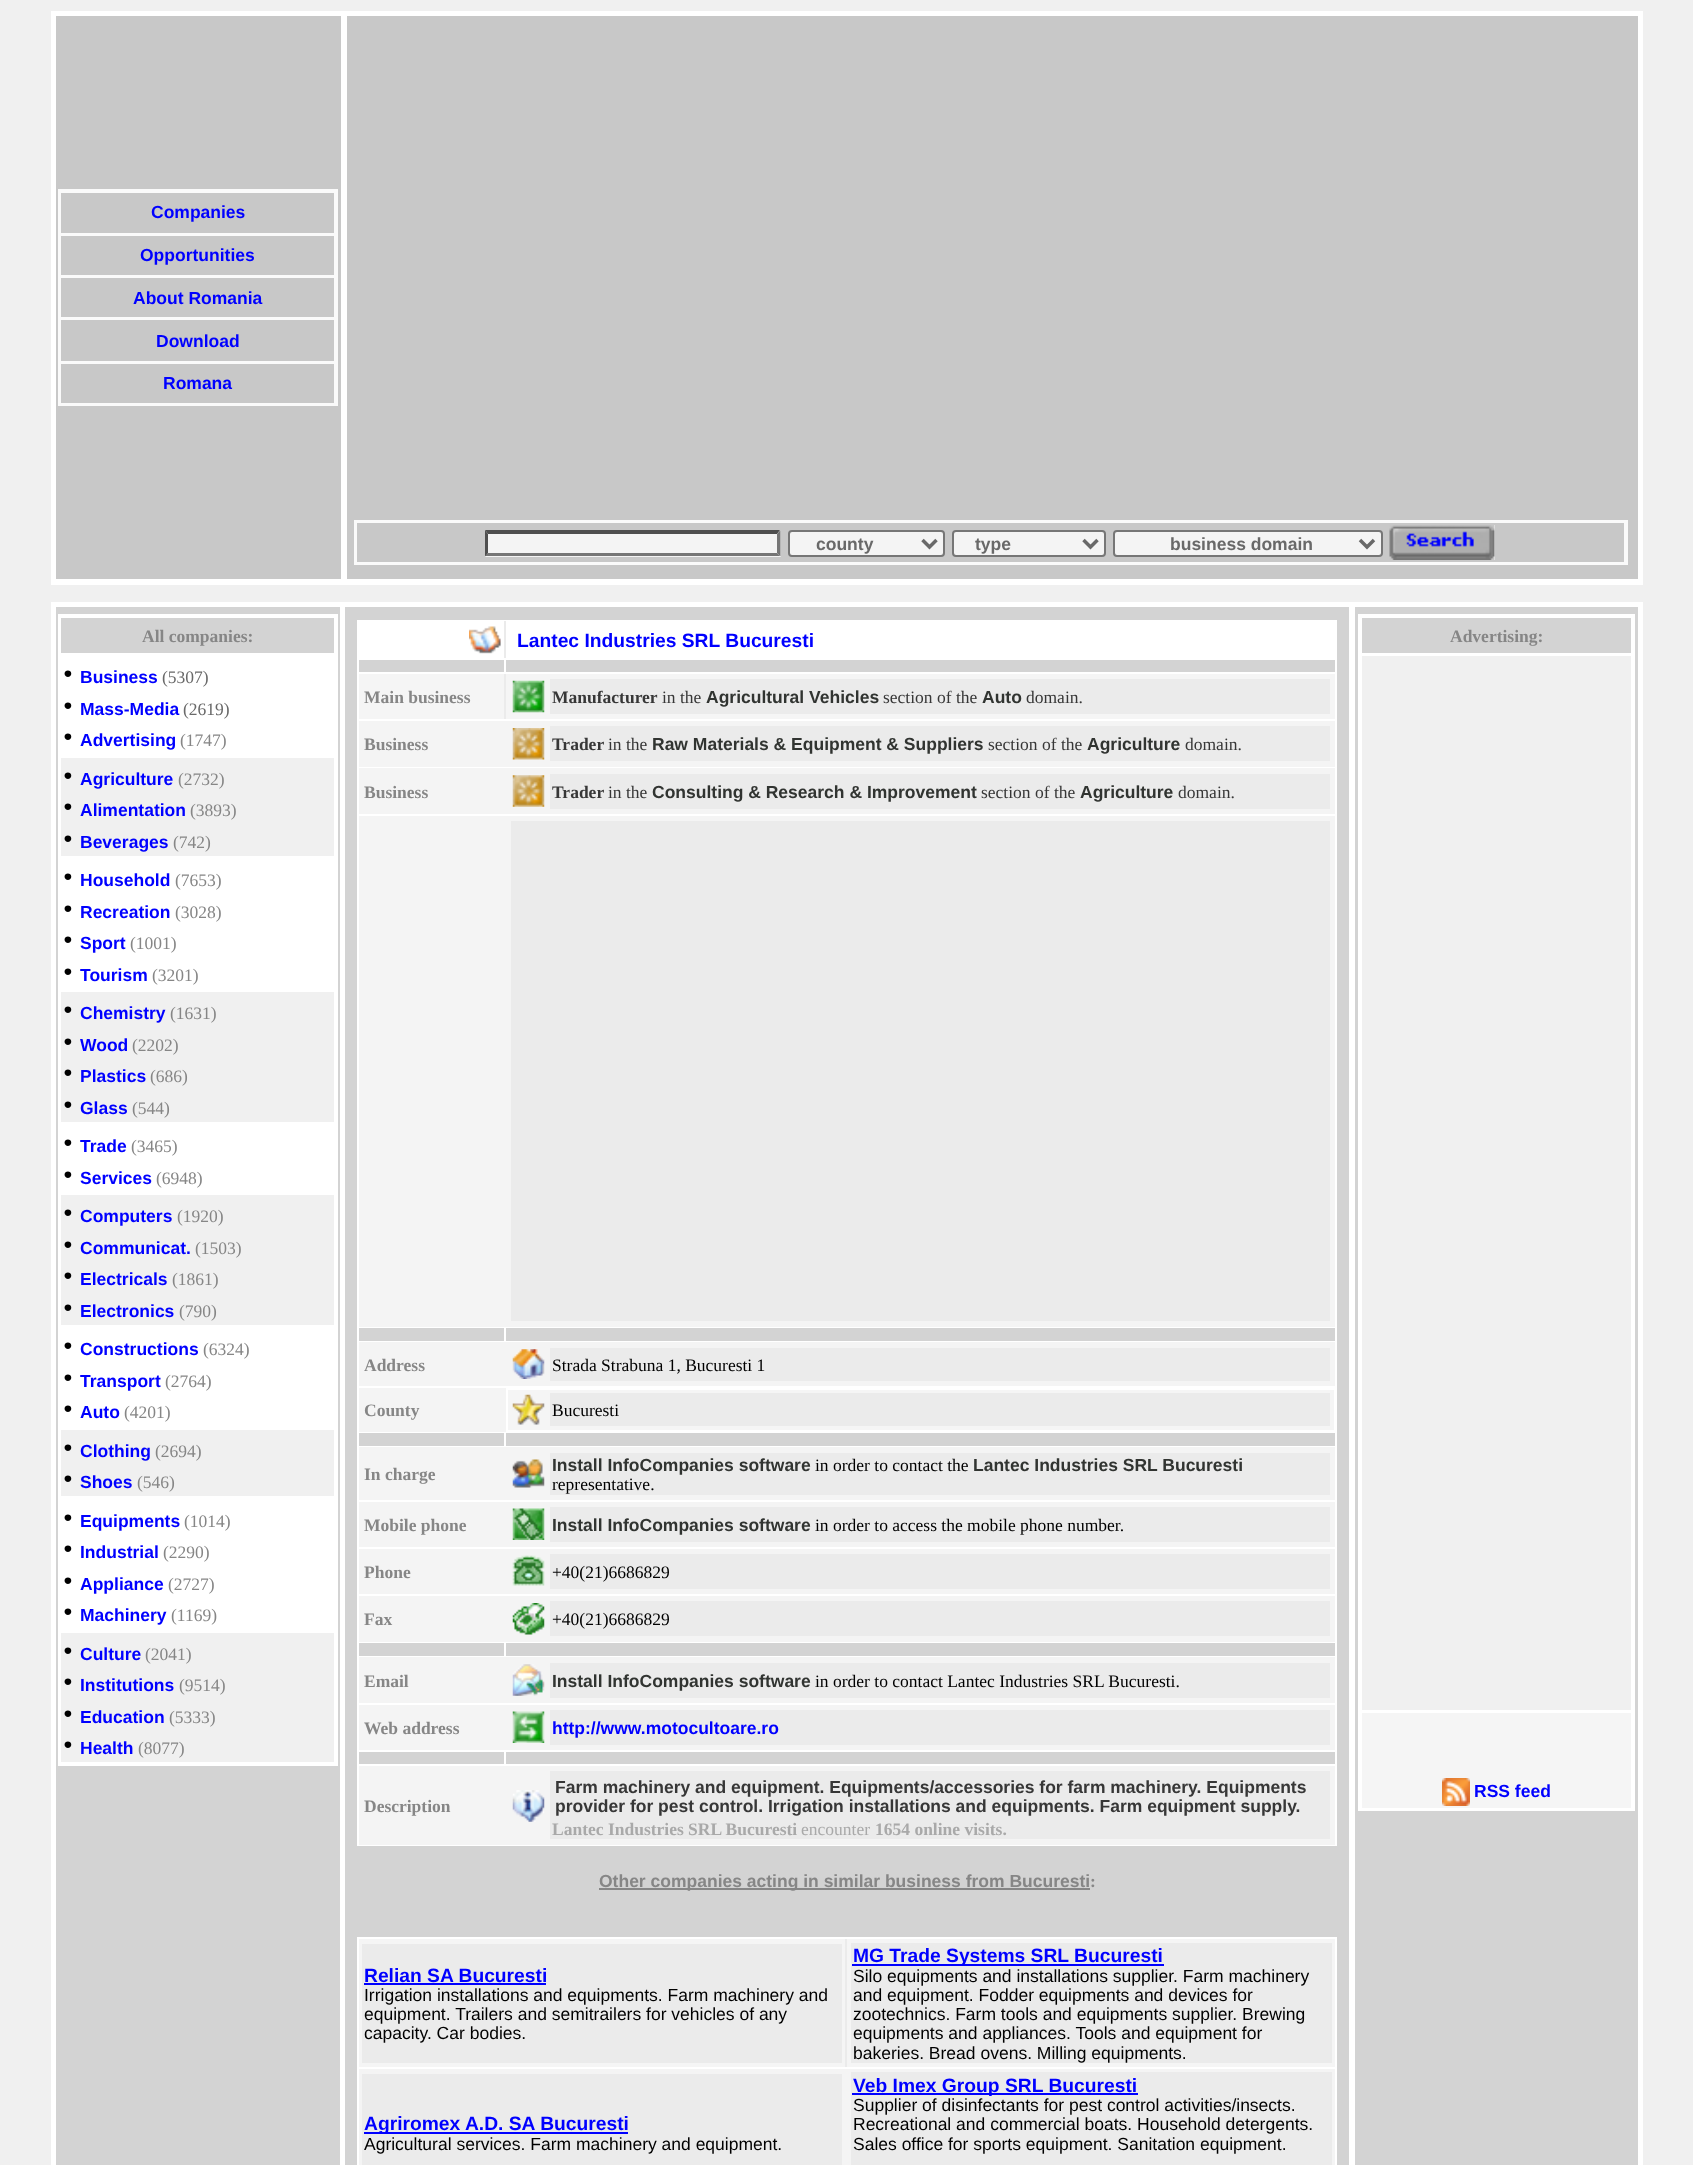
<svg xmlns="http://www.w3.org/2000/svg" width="1693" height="2165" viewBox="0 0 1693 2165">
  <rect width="100%" height="100%" fill="rgb(240,240,240)"/>
  <rect x="51" y="11" width="1592" height="574" fill="rgb(255,255,255)"/>
  <rect x="56" y="16" width="285" height="563" fill="rgb(200,200,200)"/>
  <rect x="58" y="189" width="280" height="217" fill="rgb(250,250,250)"/>
  <rect x="61" y="193" width="273" height="40" fill="rgb(200,200,200)"/>
  <text x="151" y="218" font-family="Liberation Sans" font-size="17.5" font-weight="bold" fill="rgb(0,0,255)">Companies</text>
  <rect x="61" y="236" width="273" height="39" fill="rgb(200,200,200)"/>
  <text x="140" y="261" font-family="Liberation Sans" font-size="17.5" font-weight="bold" fill="rgb(0,0,255)">Opportunities</text>
  <rect x="61" y="278" width="273" height="39" fill="rgb(200,200,200)"/>
  <text x="133" y="304" font-family="Liberation Sans" font-size="17.5" font-weight="bold" fill="rgb(0,0,255)">About Romania</text>
  <rect x="61" y="320" width="273" height="41" fill="rgb(200,200,200)"/>
  <text x="156" y="347" font-family="Liberation Sans" font-size="17.5" font-weight="bold" fill="rgb(0,0,255)">Download</text>
  <rect x="61" y="364" width="273" height="39" fill="rgb(200,200,200)"/>
  <text x="163" y="389" font-family="Liberation Sans" font-size="17.5" font-weight="bold" fill="rgb(0,0,255)">Romana</text>
  <rect x="347" y="16" width="1291" height="563" fill="rgb(200,200,200)"/>
  <rect x="354" y="520" width="1274" height="45" fill="rgb(250,250,250)"/>
  <rect x="357" y="523" width="1267" height="39" fill="rgb(200,200,200)"/>
  <rect x="485" y="530" width="296" height="27" fill="rgb(244,244,244)"/>
  <path d="M485 530H780L777 534H488Z" fill="rgb(79,79,79)"/>
  <path d="M780.5 530V556.5L777 553V534Z" fill="rgb(118,118,118)"/>
  <path d="M780 556H485L488 553H777Z" fill="rgb(118,118,118)"/>
  <path d="M485 556.5V530L488 534V553Z" fill="rgb(79,79,79)"/>
  <rect x="789" y="531" width="155" height="25" rx="3" fill="rgb(244,244,244)" stroke="rgb(118,118,118)" stroke-width="2"/>
  <path d="M922.5 540L929.5 547L936.5 540" fill="none" stroke="rgb(105,105,105)" stroke-width="3.5"/>
  <text x="816" y="550" font-family="Liberation Sans" font-size="17.5" font-weight="bold" fill="rgb(105,105,105)">county</text>
  <rect x="953" y="531" width="152" height="25" rx="3" fill="rgb(244,244,244)" stroke="rgb(118,118,118)" stroke-width="2"/>
  <path d="M1083.5 540L1090.5 547L1097.5 540" fill="none" stroke="rgb(105,105,105)" stroke-width="3.5"/>
  <text x="975" y="550" font-family="Liberation Sans" font-size="17.5" font-weight="bold" fill="rgb(105,105,105)">type</text>
  <rect x="1114" y="531" width="268" height="25" rx="3" fill="rgb(244,244,244)" stroke="rgb(118,118,118)" stroke-width="2"/>
  <path d="M1360 540L1367 547L1374 540" fill="none" stroke="rgb(105,105,105)" stroke-width="3.5"/>
  <text x="1170" y="550" font-family="Liberation Sans" font-size="17.5" font-weight="bold" fill="rgb(105,105,105)">business domain</text>
  <rect x="1494" y="525" width="1" height="35" fill="rgb(244,244,244)"/>
  <image x="1389" y="525" width="106" height="35" href="pic1.png"/>
  <rect x="51" y="602" width="1592" height="1563" fill="rgb(255,255,255)"/>
  <rect x="56" y="607" width="284" height="1558" fill="rgb(211,211,211)"/>
  <rect x="58" y="614" width="280" height="1152" fill="rgb(255,255,255)"/>
  <rect x="61" y="618" width="273" height="35" fill="rgb(211,211,211)"/>
  <text x="142" y="642" font-family="Liberation Serif" font-size="17.5" font-weight="bold" fill="rgb(134,134,134)">All companies:</text>
  <text x="63" y="683" font-family="Liberation Serif" font-size="28" fill="rgb(0,0,0)">•</text>
  <text x="80" y="683" font-family="Liberation Sans" font-size="17.5" font-weight="bold" fill="rgb(0,0,255)">Business</text>
  <text x="162" y="683" font-family="Liberation Serif" font-size="17.5" fill="rgb(105,105,105)">(5307)</text>
  <text x="63" y="715" font-family="Liberation Serif" font-size="28" fill="rgb(0,0,0)">•</text>
  <text x="80" y="715" font-family="Liberation Sans" font-size="17.5" font-weight="bold" fill="rgb(0,0,255)">Mass-Media</text>
  <text x="183" y="715" font-family="Liberation Serif" font-size="17.5" fill="rgb(105,105,105)">(2619)</text>
  <text x="63" y="746" font-family="Liberation Serif" font-size="28" fill="rgb(0,0,0)">•</text>
  <text x="80" y="746" font-family="Liberation Sans" font-size="17.5" font-weight="bold" fill="rgb(0,0,255)">Advertising</text>
  <text x="180" y="746" font-family="Liberation Serif" font-size="17.5" fill="rgb(134,134,134)">(1747)</text>
  <rect x="61" y="758" width="273" height="98" fill="rgb(240,240,240)"/>
  <text x="63" y="785" font-family="Liberation Serif" font-size="28" fill="rgb(0,0,0)">•</text>
  <text x="80" y="785" font-family="Liberation Sans" font-size="17.5" font-weight="bold" fill="rgb(0,0,255)">Agriculture</text>
  <text x="178" y="785" font-family="Liberation Serif" font-size="17.5" fill="rgb(134,134,134)">(2732)</text>
  <text x="63" y="816" font-family="Liberation Serif" font-size="28" fill="rgb(0,0,0)">•</text>
  <text x="80" y="816" font-family="Liberation Sans" font-size="17.5" font-weight="bold" fill="rgb(0,0,255)">Alimentation</text>
  <text x="190" y="816" font-family="Liberation Serif" font-size="17.5" fill="rgb(134,134,134)">(3893)</text>
  <text x="63" y="848" font-family="Liberation Serif" font-size="28" fill="rgb(0,0,0)">•</text>
  <text x="80" y="848" font-family="Liberation Sans" font-size="17.5" font-weight="bold" fill="rgb(0,0,255)">Beverages</text>
  <text x="173" y="848" font-family="Liberation Serif" font-size="17.5" fill="rgb(134,134,134)">(742)</text>
  <text x="63" y="886" font-family="Liberation Serif" font-size="28" fill="rgb(0,0,0)">•</text>
  <text x="80" y="886" font-family="Liberation Sans" font-size="17.5" font-weight="bold" fill="rgb(0,0,255)">Household</text>
  <text x="175" y="886" font-family="Liberation Serif" font-size="17.5" fill="rgb(134,134,134)">(7653)</text>
  <text x="63" y="918" font-family="Liberation Serif" font-size="28" fill="rgb(0,0,0)">•</text>
  <text x="80" y="918" font-family="Liberation Sans" font-size="17.5" font-weight="bold" fill="rgb(0,0,255)">Recreation</text>
  <text x="175" y="918" font-family="Liberation Serif" font-size="17.5" fill="rgb(134,134,134)">(3028)</text>
  <text x="63" y="949" font-family="Liberation Serif" font-size="28" fill="rgb(0,0,0)">•</text>
  <text x="80" y="949" font-family="Liberation Sans" font-size="17.5" font-weight="bold" fill="rgb(0,0,255)">Sport</text>
  <text x="130" y="949" font-family="Liberation Serif" font-size="17.5" fill="rgb(134,134,134)">(1001)</text>
  <text x="63" y="981" font-family="Liberation Serif" font-size="28" fill="rgb(0,0,0)">•</text>
  <text x="80" y="981" font-family="Liberation Sans" font-size="17.5" font-weight="bold" fill="rgb(0,0,255)">Tourism</text>
  <text x="152" y="981" font-family="Liberation Serif" font-size="17.5" fill="rgb(134,134,134)">(3201)</text>
  <rect x="61" y="992" width="273" height="130" fill="rgb(240,240,240)"/>
  <text x="63" y="1019" font-family="Liberation Serif" font-size="28" fill="rgb(0,0,0)">•</text>
  <text x="80" y="1019" font-family="Liberation Sans" font-size="17.5" font-weight="bold" fill="rgb(0,0,255)">Chemistry</text>
  <text x="170" y="1019" font-family="Liberation Serif" font-size="17.5" fill="rgb(134,134,134)">(1631)</text>
  <text x="63" y="1051" font-family="Liberation Serif" font-size="28" fill="rgb(0,0,0)">•</text>
  <text x="80" y="1051" font-family="Liberation Sans" font-size="17.5" font-weight="bold" fill="rgb(0,0,255)">Wood</text>
  <text x="132" y="1051" font-family="Liberation Serif" font-size="17.5" fill="rgb(134,134,134)">(2202)</text>
  <text x="63" y="1082" font-family="Liberation Serif" font-size="28" fill="rgb(0,0,0)">•</text>
  <text x="80" y="1082" font-family="Liberation Sans" font-size="17.5" font-weight="bold" fill="rgb(0,0,255)">Plastics</text>
  <text x="150" y="1082" font-family="Liberation Serif" font-size="17.5" fill="rgb(134,134,134)">(686)</text>
  <text x="63" y="1114" font-family="Liberation Serif" font-size="28" fill="rgb(0,0,0)">•</text>
  <text x="80" y="1114" font-family="Liberation Sans" font-size="17.5" font-weight="bold" fill="rgb(0,0,255)">Glass</text>
  <text x="132" y="1114" font-family="Liberation Serif" font-size="17.5" fill="rgb(134,134,134)">(544)</text>
  <text x="63" y="1152" font-family="Liberation Serif" font-size="28" fill="rgb(0,0,0)">•</text>
  <text x="80" y="1152" font-family="Liberation Sans" font-size="17.5" font-weight="bold" fill="rgb(0,0,255)">Trade</text>
  <text x="131" y="1152" font-family="Liberation Serif" font-size="17.5" fill="rgb(134,134,134)">(3465)</text>
  <text x="63" y="1184" font-family="Liberation Serif" font-size="28" fill="rgb(0,0,0)">•</text>
  <text x="80" y="1184" font-family="Liberation Sans" font-size="17.5" font-weight="bold" fill="rgb(0,0,255)">Services</text>
  <text x="156" y="1184" font-family="Liberation Serif" font-size="17.5" fill="rgb(134,134,134)">(6948)</text>
  <rect x="61" y="1195" width="273" height="130" fill="rgb(240,240,240)"/>
  <text x="63" y="1222" font-family="Liberation Serif" font-size="28" fill="rgb(0,0,0)">•</text>
  <text x="80" y="1222" font-family="Liberation Sans" font-size="17.5" font-weight="bold" fill="rgb(0,0,255)">Computers</text>
  <text x="177" y="1222" font-family="Liberation Serif" font-size="17.5" fill="rgb(134,134,134)">(1920)</text>
  <text x="63" y="1254" font-family="Liberation Serif" font-size="28" fill="rgb(0,0,0)">•</text>
  <text x="80" y="1254" font-family="Liberation Sans" font-size="17.5" font-weight="bold" fill="rgb(0,0,255)">Communicat.</text>
  <text x="195" y="1254" font-family="Liberation Serif" font-size="17.5" fill="rgb(134,134,134)">(1503)</text>
  <text x="63" y="1285" font-family="Liberation Serif" font-size="28" fill="rgb(0,0,0)">•</text>
  <text x="80" y="1285" font-family="Liberation Sans" font-size="17.5" font-weight="bold" fill="rgb(0,0,255)">Electricals</text>
  <text x="172" y="1285" font-family="Liberation Serif" font-size="17.5" fill="rgb(134,134,134)">(1861)</text>
  <text x="63" y="1317" font-family="Liberation Serif" font-size="28" fill="rgb(0,0,0)">•</text>
  <text x="80" y="1317" font-family="Liberation Sans" font-size="17.5" font-weight="bold" fill="rgb(0,0,255)">Electronics</text>
  <text x="179" y="1317" font-family="Liberation Serif" font-size="17.5" fill="rgb(134,134,134)">(790)</text>
  <text x="63" y="1355" font-family="Liberation Serif" font-size="28" fill="rgb(0,0,0)">•</text>
  <text x="80" y="1355" font-family="Liberation Sans" font-size="17.5" font-weight="bold" fill="rgb(0,0,255)">Constructions</text>
  <text x="203" y="1355" font-family="Liberation Serif" font-size="17.5" fill="rgb(134,134,134)">(6324)</text>
  <text x="63" y="1387" font-family="Liberation Serif" font-size="28" fill="rgb(0,0,0)">•</text>
  <text x="80" y="1387" font-family="Liberation Sans" font-size="17.5" font-weight="bold" fill="rgb(0,0,255)">Transport</text>
  <text x="165" y="1387" font-family="Liberation Serif" font-size="17.5" fill="rgb(134,134,134)">(2764)</text>
  <text x="63" y="1418" font-family="Liberation Serif" font-size="28" fill="rgb(0,0,0)">•</text>
  <text x="80" y="1418" font-family="Liberation Sans" font-size="17.5" font-weight="bold" fill="rgb(0,0,255)">Auto</text>
  <text x="124" y="1418" font-family="Liberation Serif" font-size="17.5" fill="rgb(134,134,134)">(4201)</text>
  <rect x="61" y="1430" width="273" height="66" fill="rgb(240,240,240)"/>
  <text x="63" y="1457" font-family="Liberation Serif" font-size="28" fill="rgb(0,0,0)">•</text>
  <text x="80" y="1457" font-family="Liberation Sans" font-size="17.5" font-weight="bold" fill="rgb(0,0,255)">Clothing</text>
  <text x="155" y="1457" font-family="Liberation Serif" font-size="17.5" fill="rgb(134,134,134)">(2694)</text>
  <text x="63" y="1488" font-family="Liberation Serif" font-size="28" fill="rgb(0,0,0)">•</text>
  <text x="80" y="1488" font-family="Liberation Sans" font-size="17.5" font-weight="bold" fill="rgb(0,0,255)">Shoes</text>
  <text x="137" y="1488" font-family="Liberation Serif" font-size="17.5" fill="rgb(134,134,134)">(546)</text>
  <text x="63" y="1527" font-family="Liberation Serif" font-size="28" fill="rgb(0,0,0)">•</text>
  <text x="80" y="1527" font-family="Liberation Sans" font-size="17.5" font-weight="bold" fill="rgb(0,0,255)">Equipments</text>
  <text x="184" y="1527" font-family="Liberation Serif" font-size="17.5" fill="rgb(134,134,134)">(1014)</text>
  <text x="63" y="1558" font-family="Liberation Serif" font-size="28" fill="rgb(0,0,0)">•</text>
  <text x="80" y="1558" font-family="Liberation Sans" font-size="17.5" font-weight="bold" fill="rgb(0,0,255)">Industrial</text>
  <text x="163" y="1558" font-family="Liberation Serif" font-size="17.5" fill="rgb(134,134,134)">(2290)</text>
  <text x="63" y="1590" font-family="Liberation Serif" font-size="28" fill="rgb(0,0,0)">•</text>
  <text x="80" y="1590" font-family="Liberation Sans" font-size="17.5" font-weight="bold" fill="rgb(0,0,255)">Appliance</text>
  <text x="168" y="1590" font-family="Liberation Serif" font-size="17.5" fill="rgb(134,134,134)">(2727)</text>
  <text x="63" y="1621" font-family="Liberation Serif" font-size="28" fill="rgb(0,0,0)">•</text>
  <text x="80" y="1621" font-family="Liberation Sans" font-size="17.5" font-weight="bold" fill="rgb(0,0,255)">Machinery</text>
  <text x="171" y="1621" font-family="Liberation Serif" font-size="17.5" fill="rgb(134,134,134)">(1169)</text>
  <rect x="61" y="1633" width="273" height="129" fill="rgb(240,240,240)"/>
  <text x="63" y="1660" font-family="Liberation Serif" font-size="28" fill="rgb(0,0,0)">•</text>
  <text x="80" y="1660" font-family="Liberation Sans" font-size="17.5" font-weight="bold" fill="rgb(0,0,255)">Culture</text>
  <text x="145" y="1660" font-family="Liberation Serif" font-size="17.5" fill="rgb(134,134,134)">(2041)</text>
  <text x="63" y="1691" font-family="Liberation Serif" font-size="28" fill="rgb(0,0,0)">•</text>
  <text x="80" y="1691" font-family="Liberation Sans" font-size="17.5" font-weight="bold" fill="rgb(0,0,255)">Institutions</text>
  <text x="179" y="1691" font-family="Liberation Serif" font-size="17.5" fill="rgb(134,134,134)">(9514)</text>
  <text x="63" y="1723" font-family="Liberation Serif" font-size="28" fill="rgb(0,0,0)">•</text>
  <text x="80" y="1723" font-family="Liberation Sans" font-size="17.5" font-weight="bold" fill="rgb(0,0,255)">Education</text>
  <text x="169" y="1723" font-family="Liberation Serif" font-size="17.5" fill="rgb(134,134,134)">(5333)</text>
  <text x="63" y="1754" font-family="Liberation Serif" font-size="28" fill="rgb(0,0,0)">•</text>
  <text x="80" y="1754" font-family="Liberation Sans" font-size="17.5" font-weight="bold" fill="rgb(0,0,255)">Health</text>
  <text x="138" y="1754" font-family="Liberation Serif" font-size="17.5" fill="rgb(134,134,134)">(8077)</text>
  <rect x="345" y="607" width="1004" height="1558" fill="rgb(211,211,211)"/>
  <rect x="357" y="620" width="980" height="1226" fill="rgb(255,255,255)"/>
  <rect x="504" y="621" width="2" height="37" fill="rgb(235,235,235)"/>
  <image x="469" y="626" width="32" height="28" href="pic2.png"/>
  <text x="517" y="647" font-family="Liberation Sans" font-size="19.25" font-weight="bold" fill="rgb(0,0,255)">Lantec Industries SRL Bucuresti</text>
  <rect x="359" y="660" width="145" height="12" fill="rgb(211,211,211)"/>
  <rect x="506" y="660" width="829" height="12" fill="rgb(211,211,211)"/>
  <rect x="504" y="674" width="2" height="45" fill="rgb(235,235,235)"/>
  <rect x="359" y="674" width="145" height="45" fill="rgb(245,245,245)"/>
  <text x="364" y="703" font-family="Liberation Serif" font-size="17.5" font-weight="bold" fill="rgb(134,134,134)">Main business</text>
  <rect x="506" y="674" width="829" height="45" fill="rgb(245,245,245)"/>
  <image x="512" y="680" width="33" height="33" href="pic3.png"/>
  <rect x="550" y="679" width="780" height="35" fill="rgb(235,235,235)"/>
  <text x="552" y="703" font-family="Liberation Serif" font-size="17.5" font-weight="bold" fill="rgb(55,55,55)">Manufacturer</text>
  <text x="662" y="703" font-family="Liberation Serif" font-size="17.5" fill="rgb(55,55,55)">in the</text>
  <text x="706" y="703" font-family="Liberation Sans" font-size="17.5" font-weight="bold" fill="rgb(49,52,49)">Agricultural Vehicles</text>
  <text x="883" y="703" font-family="Liberation Serif" font-size="17.5" fill="rgb(55,55,55)">section of the</text>
  <text x="982" y="703" font-family="Liberation Sans" font-size="17.5" font-weight="bold" fill="rgb(49,52,49)">Auto</text>
  <text x="1026" y="703" font-family="Liberation Serif" font-size="17.5" fill="rgb(55,55,55)">domain.</text>
  <rect x="359" y="721" width="976" height="46" fill="rgb(244,244,244)"/>
  <text x="364" y="750" font-family="Liberation Serif" font-size="17.5" font-weight="bold" fill="rgb(134,134,134)">Business</text>
  <image x="512" y="728" width="33" height="32" href="pic4.png"/>
  <rect x="550" y="726" width="780" height="35" fill="rgb(235,235,235)"/>
  <text x="552" y="750" font-family="Liberation Serif" font-size="17.5" font-weight="bold" fill="rgb(55,55,55)">Trader</text>
  <text x="608" y="750" font-family="Liberation Serif" font-size="17.5" fill="rgb(55,55,55)">in the</text>
  <text x="652" y="750" font-family="Liberation Sans" font-size="17.5" font-weight="bold" fill="rgb(49,52,49)">Raw Materials &amp; Equipment &amp; Suppliers</text>
  <text x="988" y="750" font-family="Liberation Serif" font-size="17.5" fill="rgb(55,55,55)">section of the</text>
  <text x="1087" y="750" font-family="Liberation Sans" font-size="17.5" font-weight="bold" fill="rgb(49,52,49)">Agriculture</text>
  <text x="1185" y="750" font-family="Liberation Serif" font-size="17.5" fill="rgb(55,55,55)">domain.</text>
  <rect x="359" y="768" width="976" height="46" fill="rgb(244,244,244)"/>
  <text x="364" y="798" font-family="Liberation Serif" font-size="17.5" font-weight="bold" fill="rgb(134,134,134)">Business</text>
  <image x="512" y="775" width="33" height="32" href="pic5.png"/>
  <rect x="550" y="774" width="780" height="35" fill="rgb(235,235,235)"/>
  <text x="552" y="798" font-family="Liberation Serif" font-size="17.5" font-weight="bold" fill="rgb(55,55,55)">Trader</text>
  <text x="608" y="798" font-family="Liberation Serif" font-size="17.5" fill="rgb(55,55,55)">in the</text>
  <text x="652" y="798" font-family="Liberation Sans" font-size="17.5" font-weight="bold" fill="rgb(49,52,49)">Consulting &amp; Research &amp; Improvement</text>
  <text x="981" y="798" font-family="Liberation Serif" font-size="17.5" fill="rgb(55,55,55)">section of the</text>
  <text x="1080" y="798" font-family="Liberation Sans" font-size="17.5" font-weight="bold" fill="rgb(49,52,49)">Agriculture</text>
  <text x="1178" y="798" font-family="Liberation Serif" font-size="17.5" fill="rgb(55,55,55)">domain.</text>
  <rect x="359" y="816" width="976" height="511" fill="rgb(244,244,244)"/>
  <rect x="511" y="821" width="819" height="500" fill="rgb(235,235,235)"/>
  <rect x="359" y="1328" width="145" height="13" fill="rgb(211,211,211)"/>
  <rect x="506" y="1328" width="829" height="13" fill="rgb(211,211,211)"/>
  <rect x="359" y="1342" width="976" height="44" fill="rgb(244,244,244)"/>
  <text x="364" y="1371" font-family="Liberation Serif" font-size="17.5" font-weight="bold" fill="rgb(134,134,134)">Address</text>
  <image x="512" y="1349" width="33" height="30" href="pic6.png"/>
  <rect x="550" y="1348" width="780" height="33" fill="rgb(235,235,235)"/>
  <text x="552" y="1371" font-family="Liberation Serif" font-size="17.5" fill="rgb(0,0,0)">Strada Strabuna 1, Bucuresti 1</text>
  <rect x="359" y="1388" width="147" height="44" fill="rgb(244,244,244)"/>
  <text x="364" y="1416" font-family="Liberation Serif" font-size="17.5" font-weight="bold" fill="rgb(134,134,134)">County</text>
  <rect x="508" y="1390" width="826" height="40" fill="rgb(245,245,245)"/>
  <image x="512" y="1394" width="33" height="31" href="pic7.png"/>
  <rect x="550" y="1393" width="780" height="33" fill="rgb(235,235,235)"/>
  <text x="552" y="1416" font-family="Liberation Serif" font-size="17.5" fill="rgb(0,0,0)">Bucuresti</text>
  <rect x="359" y="1433" width="145" height="13" fill="rgb(211,211,211)"/>
  <rect x="506" y="1433" width="829" height="13" fill="rgb(211,211,211)"/>
  <rect x="359" y="1447" width="976" height="53" fill="rgb(244,244,244)"/>
  <text x="364" y="1480" font-family="Liberation Serif" font-size="17.5" font-weight="bold" fill="rgb(134,134,134)">In charge</text>
  <image x="512" y="1459" width="33" height="29" href="pic8.png"/>
  <rect x="550" y="1453" width="780" height="42" fill="rgb(235,235,235)"/>
  <text x="552" y="1471" font-family="Liberation Sans" font-size="17.5" font-weight="bold" fill="rgb(49,52,49)">Install InfoCompanies software</text>
  <text x="815" y="1471" font-family="Liberation Serif" font-size="17.5" fill="rgb(0,0,0)">in order to contact the</text>
  <text x="973" y="1471" font-family="Liberation Sans" font-size="17.5" font-weight="bold" fill="rgb(49,52,49)">Lantec Industries SRL Bucuresti</text>
  <text x="552" y="1490" font-family="Liberation Serif" font-size="17.5" fill="rgb(0,0,0)">representative.</text>
  <rect x="359" y="1502" width="976" height="45" fill="rgb(244,244,244)"/>
  <text x="364" y="1531" font-family="Liberation Serif" font-size="17.5" font-weight="bold" fill="rgb(134,134,134)">Mobile phone</text>
  <image x="512" y="1508" width="33" height="32" href="pic9.png"/>
  <rect x="550" y="1507" width="780" height="35" fill="rgb(235,235,235)"/>
  <text x="552" y="1531" font-family="Liberation Sans" font-size="17.5" font-weight="bold" fill="rgb(49,52,49)">Install InfoCompanies software</text>
  <text x="815" y="1531" font-family="Liberation Serif" font-size="17.5" fill="rgb(0,0,0)">in order to access the mobile phone number.</text>
  <rect x="359" y="1549" width="976" height="45" fill="rgb(244,244,244)"/>
  <text x="364" y="1578" font-family="Liberation Serif" font-size="17.5" font-weight="bold" fill="rgb(134,134,134)">Phone</text>
  <image x="512" y="1555" width="33" height="31" href="pic10.png"/>
  <rect x="550" y="1554" width="780" height="35" fill="rgb(235,235,235)"/>
  <text x="552" y="1578" font-family="Liberation Serif" font-size="17.5" fill="rgb(0,0,0)">+40(21)6686829</text>
  <rect x="359" y="1596" width="976" height="46" fill="rgb(244,244,244)"/>
  <text x="364" y="1625" font-family="Liberation Serif" font-size="17.5" font-weight="bold" fill="rgb(134,134,134)">Fax</text>
  <image x="512" y="1603" width="33" height="32" href="pic11.png"/>
  <rect x="550" y="1601" width="780" height="35" fill="rgb(235,235,235)"/>
  <text x="552" y="1625" font-family="Liberation Serif" font-size="17.5" fill="rgb(0,0,0)">+40(21)6686829</text>
  <rect x="359" y="1643" width="145" height="13" fill="rgb(211,211,211)"/>
  <rect x="506" y="1643" width="829" height="13" fill="rgb(211,211,211)"/>
  <rect x="359" y="1657" width="976" height="46" fill="rgb(244,244,244)"/>
  <text x="364" y="1687" font-family="Liberation Serif" font-size="17.5" font-weight="bold" fill="rgb(134,134,134)">Email</text>
  <image x="512" y="1664" width="33" height="32" href="pic12.png"/>
  <rect x="550" y="1663" width="780" height="35" fill="rgb(235,235,235)"/>
  <text x="552" y="1687" font-family="Liberation Sans" font-size="17.5" font-weight="bold" fill="rgb(49,52,49)">Install InfoCompanies software</text>
  <text x="815" y="1687" font-family="Liberation Serif" font-size="17.5" fill="rgb(0,0,0)">in order to contact Lantec Industries SRL Bucuresti.</text>
  <rect x="359" y="1705" width="976" height="45" fill="rgb(244,244,244)"/>
  <text x="364" y="1734" font-family="Liberation Serif" font-size="17.5" font-weight="bold" fill="rgb(134,134,134)">Web address</text>
  <image x="512" y="1711" width="33" height="32" href="pic13.png"/>
  <rect x="550" y="1710" width="780" height="35" fill="rgb(235,235,235)"/>
  <text x="552" y="1734" font-family="Liberation Sans" font-size="17.5" font-weight="bold" fill="rgb(0,0,255)">http://www.motocultoare.ro</text>
  <rect x="359" y="1752" width="145" height="12" fill="rgb(211,211,211)"/>
  <rect x="506" y="1752" width="829" height="12" fill="rgb(211,211,211)"/>
  <rect x="359" y="1766" width="976" height="79" fill="rgb(244,244,244)"/>
  <text x="364" y="1812" font-family="Liberation Serif" font-size="17.5" font-weight="bold" fill="rgb(134,134,134)">Description</text>
  <image x="512" y="1790" width="33" height="32" href="pic14.png"/>
  <rect x="550" y="1771" width="780" height="68" fill="rgb(235,235,235)"/>
  <g font-family="Liberation Sans" font-size="17.5" font-weight="bold" fill="rgb(55,55,55)">
    <text>
      <tspan x="555" y="1793">Farm machinery and equipment. Equipments/accessories for farm machinery. Equipments</tspan>
      <tspan x="555" y="1812">provider for pest control. Irrigation installations and equipments. Farm equipment supply.</tspan>
    </text>
  </g>
  <text x="552" y="1835" font-family="Liberation Serif" font-size="17.5" font-weight="bold" fill="rgb(169,169,169)">Lantec Industries SRL Bucuresti</text>
  <text x="801" y="1835" font-family="Liberation Serif" font-size="17.5" fill="rgb(169,169,169)">encounter</text>
  <text x="875" y="1835" font-family="Liberation Serif" font-size="17.5" font-weight="bold" fill="rgb(169,169,169)">1654 online visits.</text>
  <rect x="599" y="1888" width="491" height="2" fill="rgb(134,134,134)"/>
  <text x="599" y="1887" font-family="Liberation Sans" font-size="17.5" font-weight="bold" fill="rgb(134,134,134)">Other companies acting in similar business from Bucuresti</text>
  <text x="1090" y="1887" font-family="Liberation Serif" font-size="17.5" font-weight="bold" fill="rgb(134,134,134)">:</text>
  <rect x="357" y="1937" width="980" height="228" fill="rgb(255,255,255)"/>
  <rect x="845" y="1939" width="2" height="128" fill="rgb(235,235,235)"/>
  <rect x="359" y="1939" width="486" height="128" fill="rgb(245,245,245)"/>
  <rect x="362" y="1944" width="480" height="119" fill="rgb(235,235,235)"/>
  <text x="364" y="1982" font-family="Liberation Sans" font-size="19.25" font-weight="bold" fill="rgb(0,0,255)">Relian SA Bucuresti</text>
  <rect x="364" y="1983" width="182" height="2" fill="rgb(0,0,255)"/>
  <g font-family="Liberation Sans" font-size="17.5" fill="rgb(0,0,0)">
    <text>
      <tspan x="364" y="2001">Irrigation installations and equipments. Farm machinery and</tspan>
      <tspan x="364" y="2020">equipment. Trailers and semitrailers for vehicles of any</tspan>
      <tspan x="364" y="2039">capacity. Car bodies.</tspan>
    </text>
  </g>
  <rect x="847" y="1939" width="488" height="128" fill="rgb(245,245,245)"/>
  <rect x="851" y="1943" width="481" height="120" fill="rgb(235,235,235)"/>
  <rect x="852" y="1964" width="312" height="2" fill="rgb(0,0,255)"/>
  <text x="853" y="1962" font-family="Liberation Sans" font-size="19.25" font-weight="bold" fill="rgb(0,0,255)">MG Trade Systems SRL Bucuresti</text>
  <g font-family="Liberation Sans" font-size="17.5" fill="rgb(0,0,0)">
    <text>
      <tspan x="853" y="1982">Silo equipments and installations supplier. Farm machinery</tspan>
      <tspan x="853" y="2001">and equipment. Fodder equipments and devices for</tspan>
      <tspan x="853" y="2020">zootechnics. Farm tools and equipments supplier. Brewing</tspan>
      <tspan x="853" y="2039">equipments and appliances. Tools and equipment for</tspan>
      <tspan x="853" y="2059">bakeries. Bread ovens. Milling equipments.</tspan>
    </text>
  </g>
  <rect x="359" y="2069" width="976" height="96" fill="rgb(244,244,244)"/>
  <rect x="362" y="2074" width="480" height="91" fill="rgb(235,235,235)"/>
  <rect x="364" y="2132" width="264" height="2" fill="rgb(0,0,255)"/>
  <text x="364" y="2130" font-family="Liberation Sans" font-size="19.25" font-weight="bold" fill="rgb(0,0,255)">Agriromex A.D. SA Bucuresti</text>
  <text x="364" y="2150" font-family="Liberation Sans" font-size="17.5" fill="rgb(0,0,0)">Agricultural services. Farm machinery and equipment.</text>
  <rect x="851" y="2072" width="481" height="93" fill="rgb(235,235,235)"/>
  <rect x="852" y="2093" width="286" height="2" fill="rgb(0,0,255)"/>
  <text x="853" y="2092" font-family="Liberation Sans" font-size="19.25" font-weight="bold" fill="rgb(0,0,255)">Veb Imex Group SRL Bucuresti</text>
  <g font-family="Liberation Sans" font-size="17.5" fill="rgb(0,0,0)">
    <text>
      <tspan x="853" y="2111">Supplier of disinfectants for pest control activities/insects.</tspan>
      <tspan x="853" y="2130">Recreational and commercial boats. Household detergents.</tspan>
      <tspan x="853" y="2150">Sales office for sports equipment. Sanitation equipment.</tspan>
    </text>
  </g>
  <rect x="1355" y="607" width="283" height="1558" fill="rgb(211,211,211)"/>
  <rect x="1358" y="614" width="277" height="1197" fill="rgb(255,255,255)"/>
  <rect x="1362" y="618" width="269" height="35" fill="rgb(211,211,211)"/>
  <text x="1450" y="642" font-family="Liberation Serif" font-size="17.5" font-weight="bold" fill="rgb(134,134,134)">Advertising:</text>
  <rect x="1362" y="656" width="269" height="1054" fill="rgb(240,240,240)"/>
  <rect x="1362" y="1713" width="269" height="95" fill="rgb(245,245,245)"/>
  <image x="1442" y="1778" width="28" height="28" href="pic15.png"/>
  <text x="1474" y="1797" font-family="Liberation Sans" font-size="17.5" font-weight="bold" fill="rgb(0,0,255)">RSS feed</text>
</svg>
